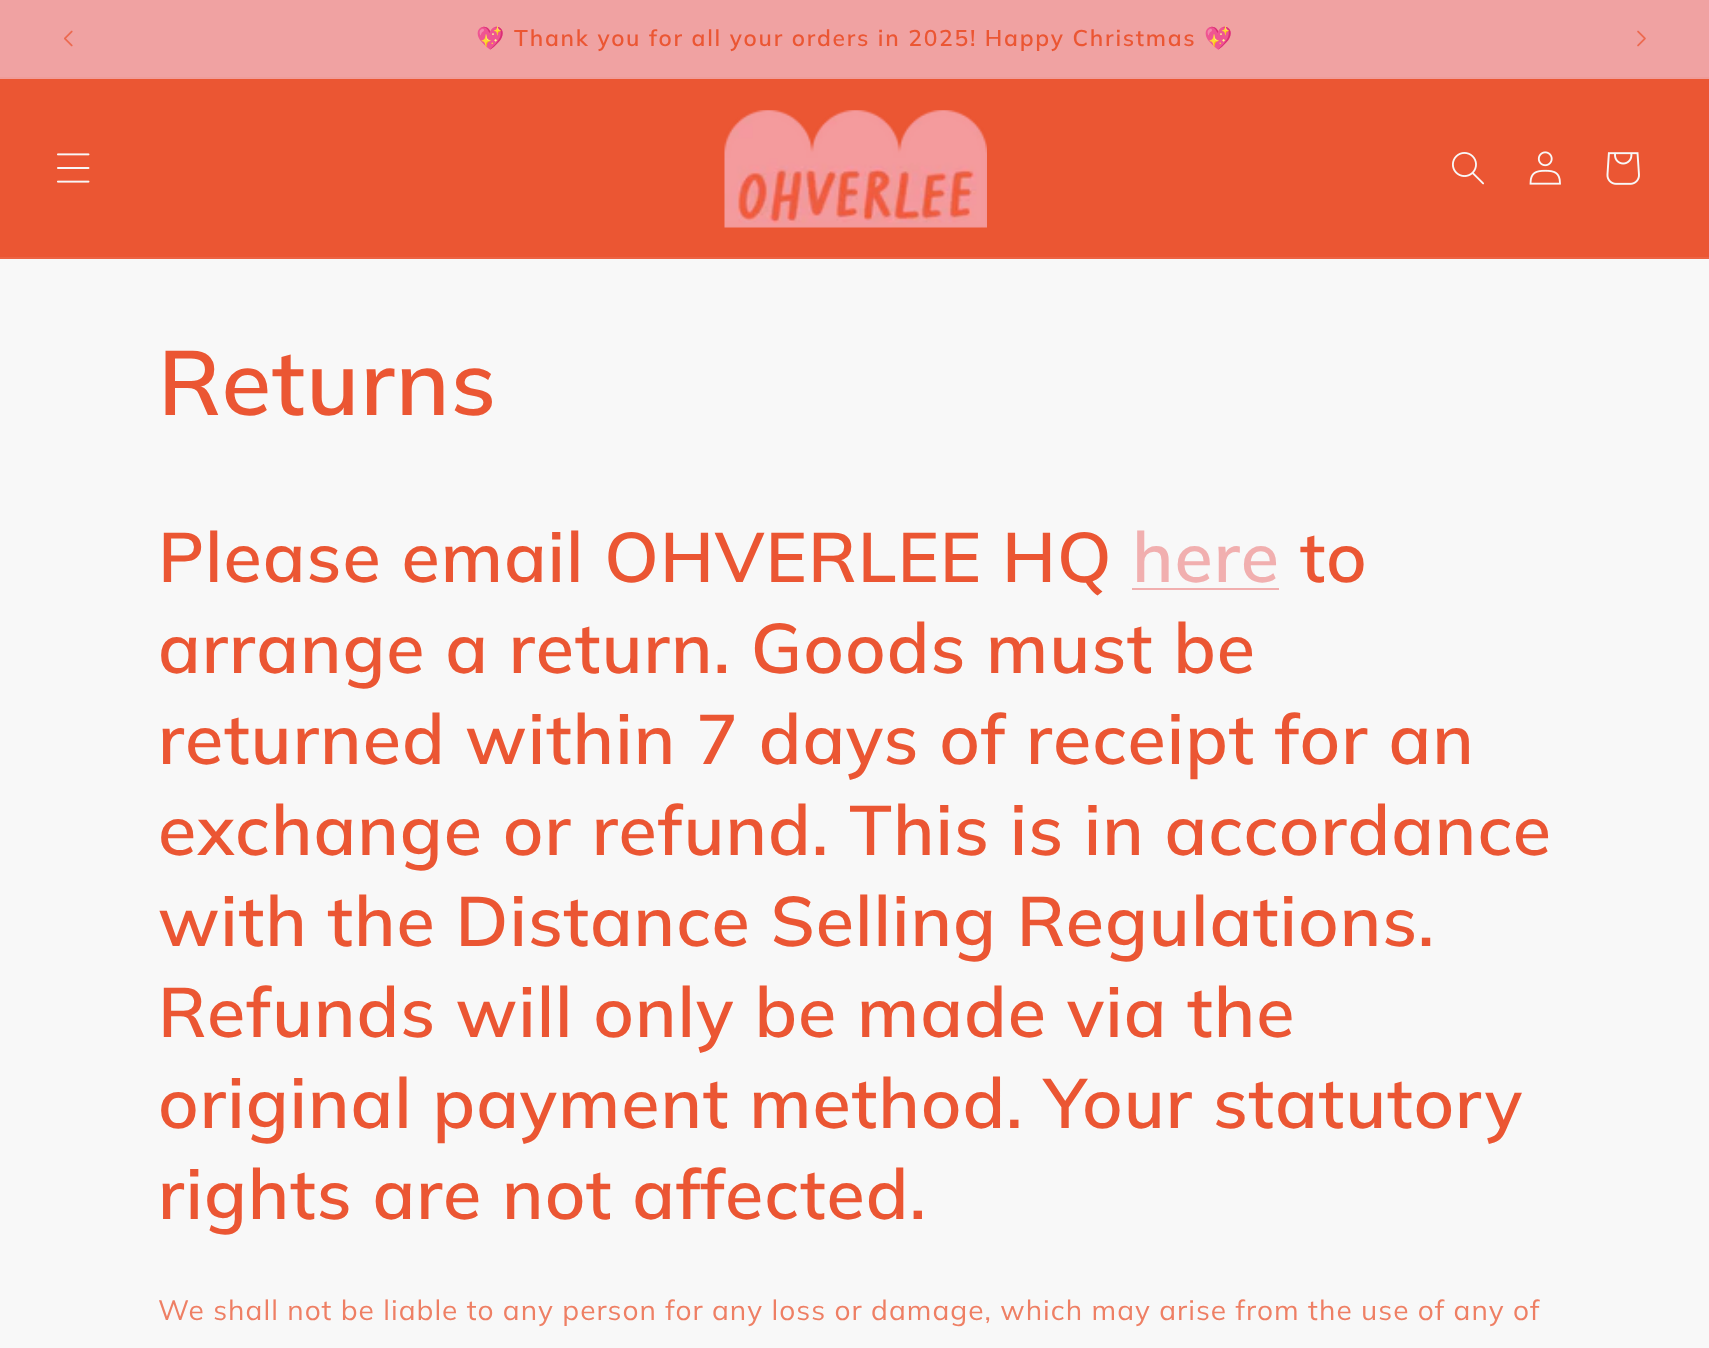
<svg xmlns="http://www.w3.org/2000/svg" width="1709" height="1348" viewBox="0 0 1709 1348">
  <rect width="100%" height="100%" fill="rgb(248,248,248)"/>
  <rect x="0" y="0" width="1709" height="77" fill="rgb(240,162,162)"/>
  <rect x="0" y="77" width="1709" height="2" fill="rgb(240,156,153)"/>
  <image x="64" y="30" width="9" height="17" href="pic1.png"/>
  <text x="476" y="46" font-family="Noto Color Emoji" font-size="22.75" font-weight="bold" letter-spacing="1.75" fill="rgb(235,86,51)">💖</text>
  <text x="514" y="46" font-family="Muli" font-size="22.75" font-weight="600" letter-spacing="1.75" fill="rgb(235,86,51)">Thank you for all your orders in 2025! Happy Christmas</text>
  <text x="1204" y="46" font-family="Noto Color Emoji" font-size="22.75" font-weight="bold" letter-spacing="1.75" fill="rgb(235,86,51)">💖</text>
  <image x="1637" y="30" width="9" height="17" href="pic2.png"/>
  <rect x="0" y="79" width="1709" height="178" fill="rgb(235,86,51)"/>
  <rect x="0" y="257" width="1709" height="2" fill="rgb(236,99,67)"/>
  <image x="57" y="153" width="33" height="30" href="pic3.png"/>
  <image x="724" y="110" width="263" height="118" href="pic4.png"/>
  <image x="1452" y="152" width="32" height="33" href="pic5.png"/>
  <image x="1529" y="151" width="32" height="34" href="pic6.png"/>
  <image x="1606" y="152" width="34" height="33" href="pic7.png"/>
  <text x="158" y="415" font-family="Muli" font-size="91" font-weight="600" letter-spacing="1.05" fill="rgb(235,86,51)">Returns</text>
  <text x="158" y="582" font-family="Muli" font-size="70" font-weight="600" letter-spacing="1.05" fill="rgb(235,86,51)">Please email OHVERLEE HQ</text>
  <text x="1132" y="582" font-family="Muli" font-size="70" font-weight="600" letter-spacing="1.05" fill="rgb(241,175,175)">here</text>
  <rect x="1132" y="588" width="147" height="2" fill="rgb(241,175,175)"/>
  <g font-family="Muli" font-size="70" font-weight="600" letter-spacing="1.05" fill="rgb(235,86,51)">
    <text x="1300" y="582">to</text>
    <text>
      <tspan x="158" y="673">arrange a return. Goods must be</tspan>
      <tspan x="158" y="764">returned within 7 days of receipt for an</tspan>
      <tspan x="158" y="855">exchange or refund. This is in accordance</tspan>
      <tspan x="158" y="946">with the Distance Selling Regulations.</tspan>
      <tspan x="158" y="1037">Refunds will only be made via the</tspan>
      <tspan x="158" y="1128">original payment method. Your statutory</tspan>
      <tspan x="158" y="1219">rights are not affected.</tspan>
    </text>
  </g>
  <text x="158" y="1320" font-family="Muli" font-size="28" letter-spacing="1.05" fill="rgb(238,127,100)">We shall not be liable to any person for any loss or damage, which may arise from the use of any of</text>
</svg>
